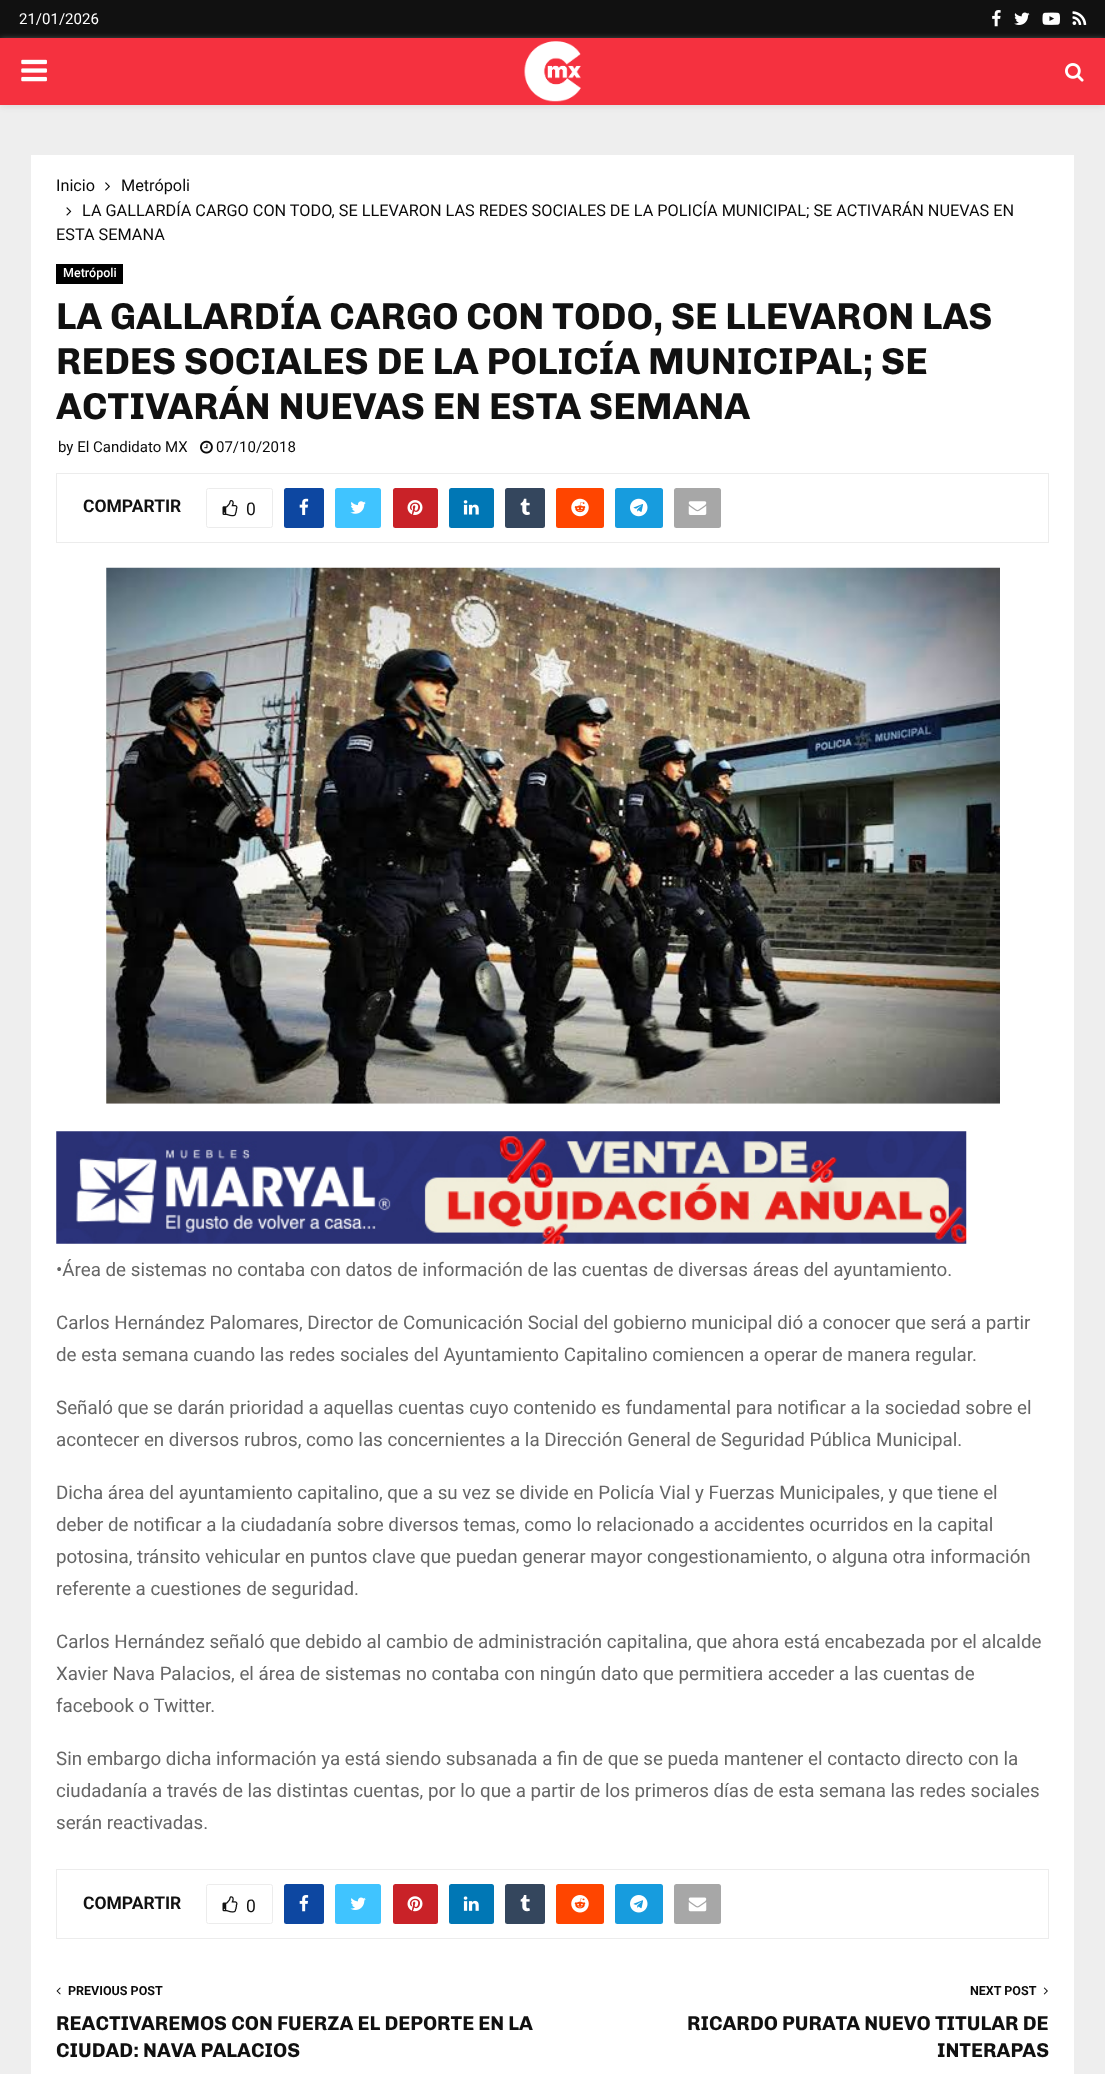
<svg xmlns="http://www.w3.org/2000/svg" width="1105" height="2074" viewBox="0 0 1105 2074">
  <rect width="100%" height="100%" fill="rgb(238,238,238)"/>
  <rect x="0" y="0" width="1105" height="38" fill="rgb(17,17,17)"/>
  <text x="19" y="24" font-family="Roboto" font-size="15" fill="rgb(255,255,255)">21/01/2026</text>
  <image x="992" y="10" width="9" height="17" href="pic1.png"/>
  <image x="1014" y="12" width="16" height="13" href="pic2.png"/>
  <image x="1042" y="12" width="18" height="13" href="pic3.png"/>
  <image x="1072" y="11" width="15" height="14" href="pic4.png"/>
  <rect x="0" y="39" width="1105" height="67" fill="rgba(190,190,190,0.46)" filter="blur(3px)"/>
  <rect x="0" y="38" width="1105" height="67" fill="rgb(245,49,63)"/>
  <image x="21" y="59" width="26" height="23" href="pic5.png"/>
  <image x="524" y="41" width="57" height="61" href="pic6.png"/>
  <image x="1065" y="63" width="19" height="19" href="pic7.png"/>
  <rect x="31" y="155" width="1043" height="1919" fill="rgb(255,255,255)"/>
  <text x="56" y="191" font-family="Roboto" font-size="16.25" fill="rgb(10,10,10)">Inicio</text>
  <image x="105" y="182" width="5" height="9" href="pic8.png"/>
  <text x="121" y="191" font-family="Roboto" font-size="16.25" fill="rgb(10,10,10)">Metrópoli</text>
  <image x="66" y="207" width="6" height="9" href="pic9.png"/>
  <g font-family="Roboto" font-size="16.25" fill="rgb(10,10,10)">
    <text x="82" y="216">LA GALLARDÍA CARGO CON TODO, SE LLEVARON LAS REDES SOCIALES DE LA POLICÍA MUNICIPAL; SE ACTIVARÁN NUEVAS EN</text>
    <text x="56" y="240">ESTA SEMANA</text>
  </g>
  <rect x="56" y="264" width="67" height="20" fill="rgb(0,0,0)"/>
  <text x="63" y="277" font-family="Roboto" font-size="12.5" font-weight="500" fill="rgb(255,255,255)">Metrópoli</text>
  <g font-family="Chivo" font-size="37.5" font-weight="bold" fill="rgb(17,17,17)">
    <text>
      <tspan x="56" y="329">LA GALLARDÍA CARGO CON TODO, SE LLEVARON LAS</tspan>
      <tspan x="56" y="374">REDES SOCIALES DE LA POLICÍA MUNICIPAL; SE</tspan>
      <tspan x="56" y="419">ACTIVARÁN NUEVAS EN ESTA SEMANA</tspan>
    </text>
  </g>
  <text x="58" y="452" font-family="Roboto" font-size="15" fill="rgb(10,10,10)">by El Candidato MX</text>
  <image x="200" y="440" width="13" height="14" href="pic10.png"/>
  <text x="216" y="452" font-family="Roboto" font-size="15" fill="rgb(10,10,10)">07/10/2018</text>
  <rect x="56.5" y="473.5" width="992" height="69" fill="none" stroke="rgb(236,236,236)"/>
  <text x="83" y="512" font-family="Roboto" font-size="17.5" font-weight="bold" fill="rgb(17,17,17)">COMPARTIR</text>
  <rect x="206.5" y="488.5" width="66" height="39" rx="2" fill="none" stroke="rgb(236,236,236)"/>
  <image x="222" y="500" width="16" height="17" href="pic11.png"/>
  <text x="246" y="515" font-family="Roboto" font-size="17.5" fill="rgb(17,17,17)">0</text>
  <rect x="284" y="488" width="40" height="40" rx="2.5" fill="rgb(13,71,161)"/>
  <image x="299" y="498" width="10" height="17" href="pic12.png"/>
  <rect x="335" y="488" width="46" height="40" rx="2.5" fill="rgb(64,196,255)"/>
  <image x="350" y="501" width="16" height="13" href="pic13.png"/>
  <rect x="393" y="488" width="45" height="40" rx="2.5" fill="rgb(201,34,40)"/>
  <image x="407" y="500" width="16" height="15" href="pic14.png"/>
  <rect x="449" y="488" width="45" height="40" rx="2.5" fill="rgb(0,119,181)"/>
  <image x="463" y="500" width="16" height="15" href="pic15.png"/>
  <rect x="505" y="488" width="40" height="40" rx="2.5" fill="rgb(52,70,93)"/>
  <image x="520" y="498" width="10" height="17" href="pic16.png"/>
  <rect x="556" y="488" width="48" height="40" rx="2.5" fill="rgb(255,69,0)"/>
  <image x="571" y="498" width="18" height="19" href="pic17.png"/>
  <rect x="615" y="488" width="48" height="40" rx="2.5" fill="rgb(23,156,222)"/>
  <image x="630" y="498" width="18" height="19" href="pic18.png"/>
  <rect x="674" y="488" width="47" height="40" rx="2.5" fill="rgb(167,167,167)"/>
  <image x="688" y="501" width="19" height="14" href="pic19.png"/>
  <image x="106" y="567" width="894" height="537" href="pic20.png"/>
  <image x="56" y="1131" width="911" height="113" href="pic21.png"/>
  <g font-family="Roboto" font-size="18.75" fill="rgb(102,102,102)">
    <text x="56" y="1276">•Área de sistemas no contaba con datos de información de las cuentas de diversas áreas del ayuntamiento.</text>
    <text>
      <tspan x="56" y="1329">Carlos Hernández Palomares, Director de Comunicación Social del gobierno municipal dió a conocer que será a partir</tspan>
      <tspan x="56" y="1361">de esta semana cuando las redes sociales del Ayuntamiento Capitalino comiencen a operar de manera regular.</tspan>
    </text>
    <text>
      <tspan x="56" y="1414">Señaló que se darán prioridad a aquellas cuentas cuyo contenido es fundamental para notificar a la sociedad sobre el</tspan>
      <tspan x="56" y="1446">acontecer en diversos rubros, como las concernientes a la Dirección General de Seguridad Pública Municipal.</tspan>
    </text>
    <text>
      <tspan x="56" y="1499">Dicha área del ayuntamiento capitalino, que a su vez se divide en Policía Vial y Fuerzas Municipales, y que tiene el</tspan>
      <tspan x="56" y="1531">deber de notificar a la ciudadanía sobre diversos temas, como lo relacionado a accidentes ocurridos en la capital</tspan>
      <tspan x="56" y="1563">potosina, tránsito vehicular en puntos clave que puedan generar mayor congestionamiento, o alguna otra información</tspan>
      <tspan x="56" y="1595">referente a cuestiones de seguridad.</tspan>
    </text>
    <text>
      <tspan x="56" y="1648">Carlos Hernández señaló que debido al cambio de administración capitalina, que ahora está encabezada por el alcalde</tspan>
      <tspan x="56" y="1680">Xavier Nava Palacios, el área de sistemas no contaba con ningún dato que permitiera acceder a las cuentas de</tspan>
      <tspan x="56" y="1712">facebook o Twitter.</tspan>
    </text>
    <text>
      <tspan x="56" y="1765">Sin embargo dicha información ya está siendo subsanada a fin de que se pueda mantener el contacto directo con la</tspan>
      <tspan x="56" y="1797">ciudadanía a través de las distintas cuentas, por lo que a partir de los primeros días de esta semana las redes sociales</tspan>
      <tspan x="56" y="1829">serán reactivadas.</tspan>
    </text>
  </g>
  <rect x="56.5" y="1869.5" width="992" height="69" fill="none" stroke="rgb(236,236,236)"/>
  <text x="83" y="1909" font-family="Roboto" font-size="17.5" font-weight="bold" fill="rgb(17,17,17)">COMPARTIR</text>
  <rect x="206.5" y="1884.5" width="66" height="39" rx="2" fill="none" stroke="rgb(236,236,236)"/>
  <image x="222" y="1896" width="16" height="17" href="pic22.png"/>
  <text x="246" y="1912" font-family="Roboto" font-size="17.5" fill="rgb(17,17,17)">0</text>
  <rect x="284" y="1884" width="40" height="40" rx="2.5" fill="rgb(13,71,161)"/>
  <image x="299" y="1895" width="10" height="17" href="pic23.png"/>
  <rect x="335" y="1884" width="46" height="40" rx="2.5" fill="rgb(64,196,255)"/>
  <image x="350" y="1897" width="16" height="13" href="pic24.png"/>
  <rect x="393" y="1884" width="45" height="40" rx="2.5" fill="rgb(201,34,40)"/>
  <image x="407" y="1896" width="16" height="16" href="pic25.png"/>
  <rect x="449" y="1884" width="45" height="40" rx="2.5" fill="rgb(0,119,181)"/>
  <image x="463" y="1896" width="16" height="15" href="pic26.png"/>
  <rect x="505" y="1884" width="40" height="40" rx="2.5" fill="rgb(52,70,93)"/>
  <image x="520" y="1895" width="10" height="17" href="pic27.png"/>
  <rect x="556" y="1884" width="48" height="40" rx="2.5" fill="rgb(255,69,0)"/>
  <image x="571" y="1895" width="18" height="18" href="pic28.png"/>
  <rect x="615" y="1884" width="48" height="40" rx="2.5" fill="rgb(23,156,222)"/>
  <image x="630" y="1895" width="18" height="18" href="pic29.png"/>
  <rect x="674" y="1884" width="47" height="40" rx="2.5" fill="rgb(167,167,167)"/>
  <image x="688" y="1897" width="19" height="15" href="pic30.png"/>
  <image x="56" y="1987" width="5" height="8" href="pic31.png"/>
  <text x="68" y="1995" font-family="Roboto" font-size="12.5" font-weight="bold" fill="rgb(10,10,10)">PREVIOUS POST</text>
  <g font-family="Chivo" font-size="20" font-weight="bold" fill="rgb(17,17,17)">
    <text>
      <tspan x="56" y="2030">REACTIVAREMOS CON FUERZA EL DEPORTE EN LA</tspan>
      <tspan x="56" y="2057">CIUDAD: NAVA PALACIOS</tspan>
    </text>
  </g>
  <text x="970" y="1995" font-family="Roboto" font-size="12.5" font-weight="bold" fill="rgb(10,10,10)">NEXT POST</text>
  <image x="1043" y="1987" width="5" height="8" href="pic32.png"/>
  <g font-family="Chivo" font-size="20" font-weight="bold" fill="rgb(17,17,17)">
    <text x="687" y="2030">RICARDO PURATA NUEVO TITULAR DE</text>
    <text x="937" y="2057">INTERAPAS</text>
  </g>
</svg>
